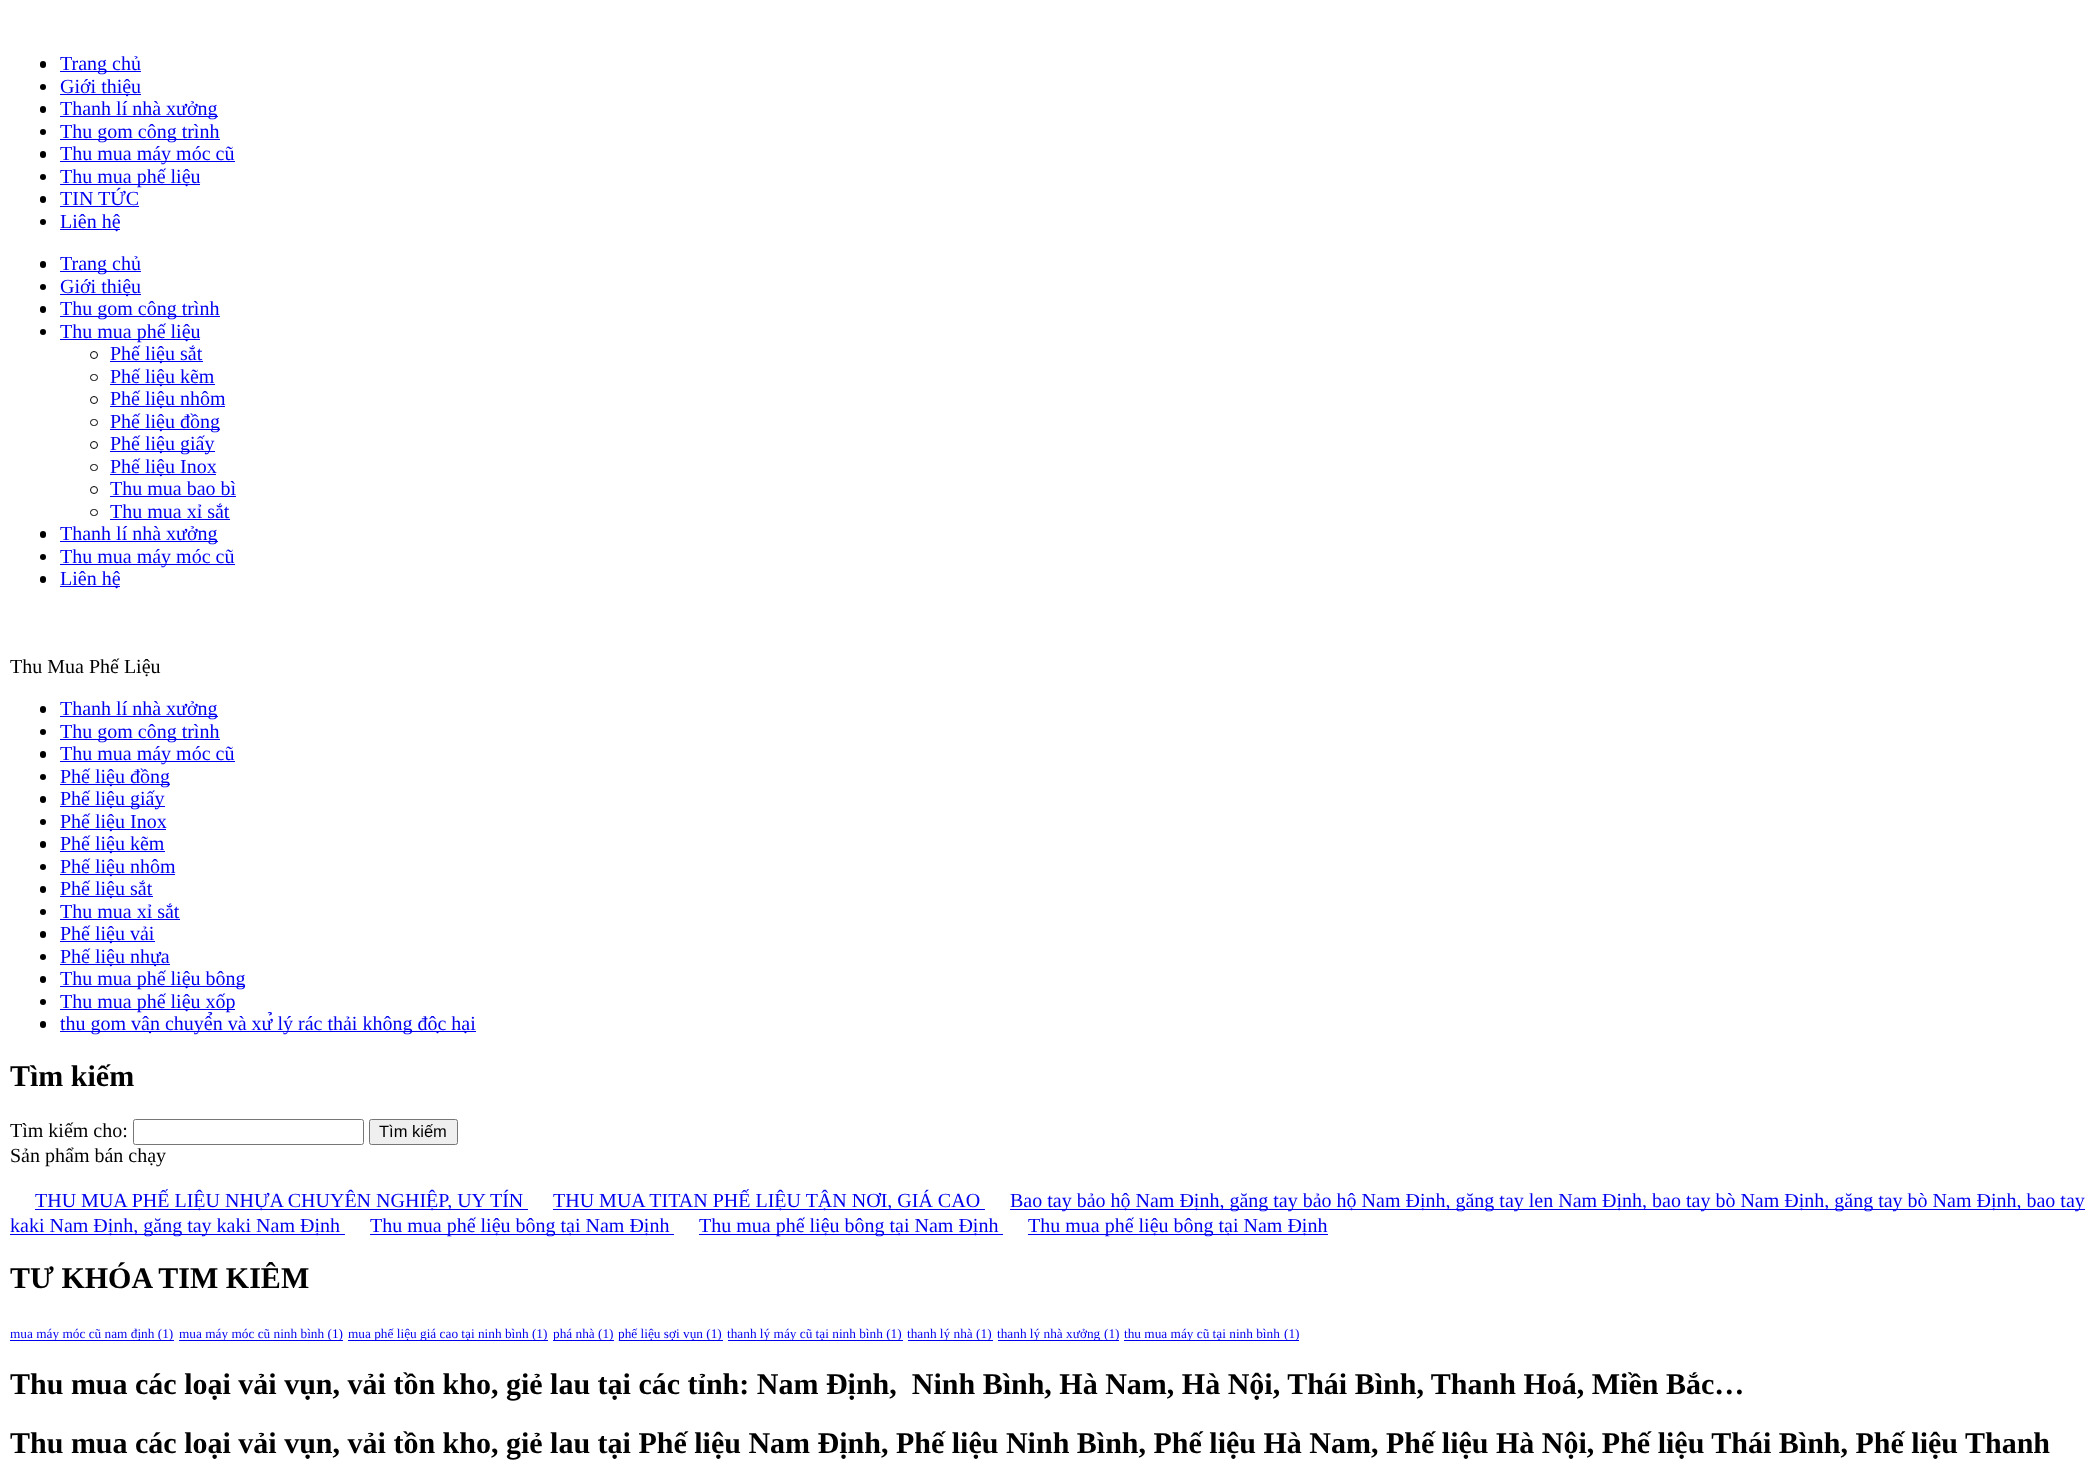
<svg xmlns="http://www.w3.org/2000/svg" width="2094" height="1467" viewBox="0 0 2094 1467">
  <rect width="100%" height="100%" fill="rgb(255,255,255)"/>
  <rect x="40" y="61" width="6" height="7" rx="3" fill="rgb(0,0,0)"/>
  <rect x="60" y="71" width="81" height="1" fill="rgb(0,0,238)"/>
  <text x="60" y="70" font-family="Liberation Serif" font-size="20" fill="rgb(0,0,238)">Trang chủ</text>
  <circle cx="43" cy="87" r="3" fill="rgb(0,0,0)"/>
  <rect x="60" y="94" width="81" height="1" fill="rgb(0,0,238)"/>
  <text x="60" y="93" font-family="Liberation Serif" font-size="20" fill="rgb(0,0,238)">Giới thiệu</text>
  <rect x="40" y="106" width="6" height="7" rx="3" fill="rgb(0,0,0)"/>
  <rect x="60" y="116" width="158" height="1" fill="rgb(0,0,238)"/>
  <text x="60" y="115" font-family="Liberation Serif" font-size="20" fill="rgb(0,0,238)">Thanh lí nhà xưởng</text>
  <circle cx="43" cy="132" r="3" fill="rgb(0,0,0)"/>
  <rect x="60" y="139" width="160" height="1" fill="rgb(0,0,238)"/>
  <text x="60" y="138" font-family="Liberation Serif" font-size="20" fill="rgb(0,0,238)">Thu gom công trình</text>
  <rect x="40" y="151" width="6" height="7" rx="3" fill="rgb(0,0,0)"/>
  <rect x="60" y="161" width="175" height="1" fill="rgb(0,0,238)"/>
  <text x="60" y="160" font-family="Liberation Serif" font-size="20" fill="rgb(0,0,238)">Thu mua máy móc cũ</text>
  <circle cx="43" cy="177" r="3" fill="rgb(0,0,0)"/>
  <rect x="60" y="184" width="140" height="1" fill="rgb(0,0,238)"/>
  <text x="60" y="183" font-family="Liberation Serif" font-size="20" fill="rgb(0,0,238)">Thu mua phế liệu</text>
  <rect x="40" y="196" width="6" height="7" rx="3" fill="rgb(0,0,0)"/>
  <text x="60" y="205" font-family="Liberation Serif" font-size="20" fill="rgb(0,0,238)">TIN TỨC</text>
  <rect x="60" y="206" width="79" height="1" fill="rgb(0,0,238)"/>
  <circle cx="43" cy="222" r="3" fill="rgb(0,0,0)"/>
  <rect x="60" y="229" width="60" height="1" fill="rgb(0,0,238)"/>
  <text x="60" y="228" font-family="Liberation Serif" font-size="20" fill="rgb(0,0,238)">Liên hệ</text>
  <rect x="40" y="261" width="6" height="7" rx="3" fill="rgb(0,0,0)"/>
  <rect x="60" y="271" width="81" height="1" fill="rgb(0,0,238)"/>
  <text x="60" y="270" font-family="Liberation Serif" font-size="20" fill="rgb(0,0,238)">Trang chủ</text>
  <circle cx="43" cy="287" r="3" fill="rgb(0,0,0)"/>
  <rect x="60" y="294" width="81" height="1" fill="rgb(0,0,238)"/>
  <text x="60" y="293" font-family="Liberation Serif" font-size="20" fill="rgb(0,0,238)">Giới thiệu</text>
  <rect x="40" y="306" width="6" height="7" rx="3" fill="rgb(0,0,0)"/>
  <rect x="60" y="316" width="160" height="1" fill="rgb(0,0,238)"/>
  <text x="60" y="315" font-family="Liberation Serif" font-size="20" fill="rgb(0,0,238)">Thu gom công trình</text>
  <circle cx="43" cy="332" r="3" fill="rgb(0,0,0)"/>
  <rect x="60" y="339" width="140" height="1" fill="rgb(0,0,238)"/>
  <text x="60" y="338" font-family="Liberation Serif" font-size="20" fill="rgb(0,0,238)">Thu mua phế liệu</text>
  <circle cx="94" cy="355" r="3.5" fill="none" stroke="rgb(0,0,0)"/>
  <rect x="110" y="361" width="93" height="1" fill="rgb(0,0,238)"/>
  <text x="110" y="360" font-family="Liberation Serif" font-size="20" fill="rgb(0,0,238)">Phế liệu sắt</text>
  <rect x="90.5" y="374.5" width="7" height="6" rx="3" fill="none" stroke="rgb(0,0,0)"/>
  <rect x="110" y="384" width="105" height="1" fill="rgb(0,0,238)"/>
  <text x="110" y="383" font-family="Liberation Serif" font-size="20" fill="rgb(0,0,238)">Phế liệu kẽm</text>
  <circle cx="94" cy="400" r="3.5" fill="none" stroke="rgb(0,0,0)"/>
  <rect x="110" y="406" width="115" height="1" fill="rgb(0,0,238)"/>
  <text x="110" y="405" font-family="Liberation Serif" font-size="20" fill="rgb(0,0,238)">Phế liệu nhôm</text>
  <rect x="90.5" y="419.5" width="7" height="6" rx="3" fill="none" stroke="rgb(0,0,0)"/>
  <rect x="110" y="429" width="110" height="1" fill="rgb(0,0,238)"/>
  <text x="110" y="428" font-family="Liberation Serif" font-size="20" fill="rgb(0,0,238)">Phế liệu đồng</text>
  <circle cx="94" cy="445" r="3.5" fill="none" stroke="rgb(0,0,0)"/>
  <rect x="110" y="451" width="105" height="1" fill="rgb(0,0,238)"/>
  <text x="110" y="450" font-family="Liberation Serif" font-size="20" fill="rgb(0,0,238)">Phế liệu giấy</text>
  <rect x="90.5" y="464.5" width="7" height="6" rx="3" fill="none" stroke="rgb(0,0,0)"/>
  <rect x="110" y="474" width="106" height="1" fill="rgb(0,0,238)"/>
  <text x="110" y="473" font-family="Liberation Serif" font-size="20" fill="rgb(0,0,238)">Phế liệu Inox</text>
  <circle cx="94" cy="490" r="3.5" fill="none" stroke="rgb(0,0,0)"/>
  <text x="110" y="495" font-family="Liberation Serif" font-size="20" fill="rgb(0,0,238)">Thu mua bao bì</text>
  <rect x="110" y="496" width="126" height="1" fill="rgb(0,0,238)"/>
  <rect x="90.5" y="509.5" width="7" height="6" rx="3" fill="none" stroke="rgb(0,0,0)"/>
  <text x="110" y="518" font-family="Liberation Serif" font-size="20" fill="rgb(0,0,238)">Thu mua xỉ sắt</text>
  <rect x="110" y="519" width="120" height="1" fill="rgb(0,0,238)"/>
  <rect x="40" y="531" width="6" height="7" rx="3" fill="rgb(0,0,0)"/>
  <rect x="60" y="541" width="158" height="1" fill="rgb(0,0,238)"/>
  <text x="60" y="540" font-family="Liberation Serif" font-size="20" fill="rgb(0,0,238)">Thanh lí nhà xưởng</text>
  <circle cx="43" cy="557" r="3" fill="rgb(0,0,0)"/>
  <rect x="60" y="564" width="175" height="1" fill="rgb(0,0,238)"/>
  <text x="60" y="563" font-family="Liberation Serif" font-size="20" fill="rgb(0,0,238)">Thu mua máy móc cũ</text>
  <rect x="40" y="576" width="6" height="7" rx="3" fill="rgb(0,0,0)"/>
  <rect x="60" y="586" width="60" height="1" fill="rgb(0,0,238)"/>
  <text x="60" y="585" font-family="Liberation Serif" font-size="20" fill="rgb(0,0,238)">Liên hệ</text>
  <text x="10" y="673" font-family="Liberation Serif" font-size="20" fill="rgb(0,0,0)">Thu Mua Phế Liệu</text>
  <rect x="40" y="706" width="6" height="7" rx="3" fill="rgb(0,0,0)"/>
  <rect x="60" y="716" width="158" height="1" fill="rgb(0,0,238)"/>
  <text x="60" y="715" font-family="Liberation Serif" font-size="20" fill="rgb(0,0,238)">Thanh lí nhà xưởng</text>
  <circle cx="43" cy="732" r="3" fill="rgb(0,0,0)"/>
  <rect x="60" y="739" width="160" height="1" fill="rgb(0,0,238)"/>
  <text x="60" y="738" font-family="Liberation Serif" font-size="20" fill="rgb(0,0,238)">Thu gom công trình</text>
  <rect x="40" y="751" width="6" height="7" rx="3" fill="rgb(0,0,0)"/>
  <rect x="60" y="761" width="175" height="1" fill="rgb(0,0,238)"/>
  <text x="60" y="760" font-family="Liberation Serif" font-size="20" fill="rgb(0,0,238)">Thu mua máy móc cũ</text>
  <circle cx="43" cy="777" r="3" fill="rgb(0,0,0)"/>
  <rect x="60" y="784" width="110" height="1" fill="rgb(0,0,238)"/>
  <text x="60" y="783" font-family="Liberation Serif" font-size="20" fill="rgb(0,0,238)">Phế liệu đồng</text>
  <rect x="40" y="796" width="6" height="7" rx="3" fill="rgb(0,0,0)"/>
  <rect x="60" y="806" width="105" height="1" fill="rgb(0,0,238)"/>
  <text x="60" y="805" font-family="Liberation Serif" font-size="20" fill="rgb(0,0,238)">Phế liệu giấy</text>
  <circle cx="43" cy="822" r="3" fill="rgb(0,0,0)"/>
  <rect x="60" y="829" width="106" height="1" fill="rgb(0,0,238)"/>
  <text x="60" y="828" font-family="Liberation Serif" font-size="20" fill="rgb(0,0,238)">Phế liệu Inox</text>
  <rect x="40" y="841" width="6" height="7" rx="3" fill="rgb(0,0,0)"/>
  <rect x="60" y="851" width="105" height="1" fill="rgb(0,0,238)"/>
  <text x="60" y="850" font-family="Liberation Serif" font-size="20" fill="rgb(0,0,238)">Phế liệu kẽm</text>
  <circle cx="43" cy="867" r="3" fill="rgb(0,0,0)"/>
  <rect x="60" y="874" width="115" height="1" fill="rgb(0,0,238)"/>
  <text x="60" y="873" font-family="Liberation Serif" font-size="20" fill="rgb(0,0,238)">Phế liệu nhôm</text>
  <rect x="40" y="886" width="6" height="7" rx="3" fill="rgb(0,0,0)"/>
  <rect x="60" y="896" width="93" height="1" fill="rgb(0,0,238)"/>
  <text x="60" y="895" font-family="Liberation Serif" font-size="20" fill="rgb(0,0,238)">Phế liệu sắt</text>
  <circle cx="43" cy="912" r="3" fill="rgb(0,0,0)"/>
  <text x="60" y="918" font-family="Liberation Serif" font-size="20" fill="rgb(0,0,238)">Thu mua xỉ sắt</text>
  <rect x="60" y="919" width="120" height="1" fill="rgb(0,0,238)"/>
  <rect x="40" y="931" width="6" height="7" rx="3" fill="rgb(0,0,0)"/>
  <rect x="60" y="941" width="95" height="1" fill="rgb(0,0,238)"/>
  <text x="60" y="940" font-family="Liberation Serif" font-size="20" fill="rgb(0,0,238)">Phế liệu vải</text>
  <circle cx="43" cy="957" r="3" fill="rgb(0,0,0)"/>
  <rect x="60" y="964" width="110" height="1" fill="rgb(0,0,238)"/>
  <text x="60" y="963" font-family="Liberation Serif" font-size="20" fill="rgb(0,0,238)">Phế liệu nhựa</text>
  <rect x="40" y="976" width="6" height="7" rx="3" fill="rgb(0,0,0)"/>
  <rect x="60" y="986" width="185" height="1" fill="rgb(0,0,238)"/>
  <text x="60" y="985" font-family="Liberation Serif" font-size="20" fill="rgb(0,0,238)">Thu mua phế liệu bông</text>
  <circle cx="43" cy="1002" r="3" fill="rgb(0,0,0)"/>
  <rect x="60" y="1009" width="175" height="1" fill="rgb(0,0,238)"/>
  <text x="60" y="1008" font-family="Liberation Serif" font-size="20" fill="rgb(0,0,238)">Thu mua phế liệu xốp</text>
  <rect x="40" y="1021" width="6" height="7" rx="3" fill="rgb(0,0,0)"/>
  <rect x="60" y="1031" width="416" height="1" fill="rgb(0,0,238)"/>
  <text x="60" y="1030" font-family="Liberation Serif" font-size="20" fill="rgb(0,0,238)">thu gom vận chuyển và xử lý rác thải không độc hại</text>
  <text x="10" y="1086" font-family="Liberation Serif" font-size="30" font-weight="bold" fill="rgb(0,0,0)">Tìm kiếm</text>
  <text x="10" y="1137" font-family="Liberation Serif" font-size="20" fill="rgb(0,0,0)">Tìm kiếm cho:</text>
  <rect x="133.5" y="1119.5" width="230" height="25" rx="2" fill="none" stroke="rgb(118,118,118)"/>
  <rect x="369.5" y="1119.5" width="88" height="25" rx="2" fill="rgb(239,239,239)" stroke="rgb(118,118,118)"/>
  <text x="379" y="1137" font-family="Liberation Sans" font-size="16.5" fill="rgb(0,0,0)">Tìm kiếm</text>
  <text x="10" y="1162" font-family="Liberation Serif" font-size="20" fill="rgb(0,0,0)">Sản phẩm bán chạy</text>
  <rect x="35" y="1209" width="493" height="1" fill="rgb(0,0,238)"/>
  <text x="35" y="1207" font-family="Liberation Serif" font-size="20" fill="rgb(0,0,238)">THU MUA PHẾ LIỆU NHỰA CHUYÊN NGHIỆP, UY TÍN</text>
  <rect x="553" y="1209" width="432" height="1" fill="rgb(0,0,238)"/>
  <text x="553" y="1207" font-family="Liberation Serif" font-size="20" fill="rgb(0,0,238)">THU MUA TITAN PHẾ LIỆU TẬN NƠI, GIÁ CAO</text>
  <rect x="1010" y="1209" width="1075" height="1" fill="rgb(0,0,238)"/>
  <text x="1010" y="1207" font-family="Liberation Serif" font-size="20" fill="rgb(0,0,238)">Bao tay bảo hộ Nam Định, găng tay bảo hộ Nam Định, găng tay len Nam Định, bao tay bò Nam Định, găng tay bò Nam Định, bao tay</text>
  <rect x="10" y="1234" width="335" height="1" fill="rgb(0,0,238)"/>
  <text x="10" y="1232" font-family="Liberation Serif" font-size="20" fill="rgb(0,0,238)">kaki Nam Định, găng tay kaki Nam Định</text>
  <rect x="370" y="1234" width="304" height="1" fill="rgb(0,0,238)"/>
  <text x="370" y="1232" font-family="Liberation Serif" font-size="20" fill="rgb(0,0,238)">Thu mua phế liệu bông tại Nam Định</text>
  <rect x="699" y="1234" width="304" height="1" fill="rgb(0,0,238)"/>
  <text x="699" y="1232" font-family="Liberation Serif" font-size="20" fill="rgb(0,0,238)">Thu mua phế liệu bông tại Nam Định</text>
  <rect x="1028" y="1234" width="300" height="1" fill="rgb(0,0,238)"/>
  <text x="1028" y="1232" font-family="Liberation Serif" font-size="20" fill="rgb(0,0,238)">Thu mua phế liệu bông tại Nam Định</text>
  <text x="10" y="1288" font-family="Liberation Serif" font-size="30" font-weight="bold" fill="rgb(0,0,0)">TƯ KHÓA TIM KIÊM</text>
  <rect x="10" y="1340" width="164" height="1" fill="rgb(0,0,238)"/>
  <text x="10" y="1338" font-family="Liberation Serif" font-size="13.3" fill="rgb(0,0,238)">mua máy móc cũ nam định (1)</text>
  <rect x="179" y="1340" width="164" height="1" fill="rgb(0,0,238)"/>
  <text x="179" y="1338" font-family="Liberation Serif" font-size="13.3" fill="rgb(0,0,238)">mua máy móc cũ ninh bình (1)</text>
  <rect x="348" y="1340" width="200" height="1" fill="rgb(0,0,238)"/>
  <text x="348" y="1338" font-family="Liberation Serif" font-size="13.3" fill="rgb(0,0,238)">mua phế liệu giá cao tại ninh bình (1)</text>
  <rect x="553" y="1340" width="41" height="1" fill="rgb(0,0,238)"/>
  <text x="553" y="1338" font-family="Liberation Serif" font-size="13.3" fill="rgb(0,0,238)">phá nhà</text>
  <rect x="594" y="1340" width="20" height="1" fill="rgb(0,0,238)"/>
  <text x="598" y="1338" font-family="Liberation Serif" font-size="13.3" fill="rgb(0,0,238)">(1)</text>
  <rect x="619" y="1340" width="104" height="1" fill="rgb(0,0,238)"/>
  <text x="618" y="1338" font-family="Liberation Serif" font-size="13.3" fill="rgb(0,0,238)">phế liệu sợi vụn (1)</text>
  <rect x="728" y="1340" width="175" height="1" fill="rgb(0,0,238)"/>
  <text x="727" y="1338" font-family="Liberation Serif" font-size="13.3" fill="rgb(0,0,238)">thanh lý máy cũ tại ninh bình (1)</text>
  <rect x="908" y="1340" width="85" height="1" fill="rgb(0,0,238)"/>
  <text x="907" y="1338" font-family="Liberation Serif" font-size="13.3" fill="rgb(0,0,238)">thanh lý nhà (1)</text>
  <rect x="998" y="1340" width="102" height="1" fill="rgb(0,0,238)"/>
  <text x="997" y="1338" font-family="Liberation Serif" font-size="13.3" fill="rgb(0,0,238)">thanh lý nhà xưởng</text>
  <rect x="1100" y="1340" width="19" height="1" fill="rgb(0,0,238)"/>
  <text x="1104" y="1338" font-family="Liberation Serif" font-size="13.3" fill="rgb(0,0,238)">(1)</text>
  <rect x="1124" y="1340" width="156" height="1" fill="rgb(0,0,238)"/>
  <text x="1124" y="1338" font-family="Liberation Serif" font-size="13.3" fill="rgb(0,0,238)">thu mua máy cũ tại ninh bình</text>
  <rect x="1280" y="1340" width="19" height="1" fill="rgb(0,0,238)"/>
  <text x="1284" y="1338" font-family="Liberation Serif" font-size="13.3" fill="rgb(0,0,238)">(1)</text>
  <g font-family="Liberation Serif" font-size="30" font-weight="bold" fill="rgb(0,0,0)">
    <text xml:space="preserve"><tspan x="10" y="1394">Thu mua các loại vải vụn, vải tồn kho, giẻ lau tại các tỉnh: Nam Định,  Ninh Bình, Hà Nam, Hà Nội, Thái Bình, Thanh Hoá, Miền Bắc…</tspan><tspan x="10" y="1453">Thu mua các loại vải vụn, vải tồn kho, giẻ lau tại Phế liệu Nam Định, Phế liệu Ninh Bình, Phế liệu Hà Nam, Phế liệu Hà Nội, Phế liệu Thái Bình, Phế liệu Thanh</tspan></text>
  </g>
</svg>
